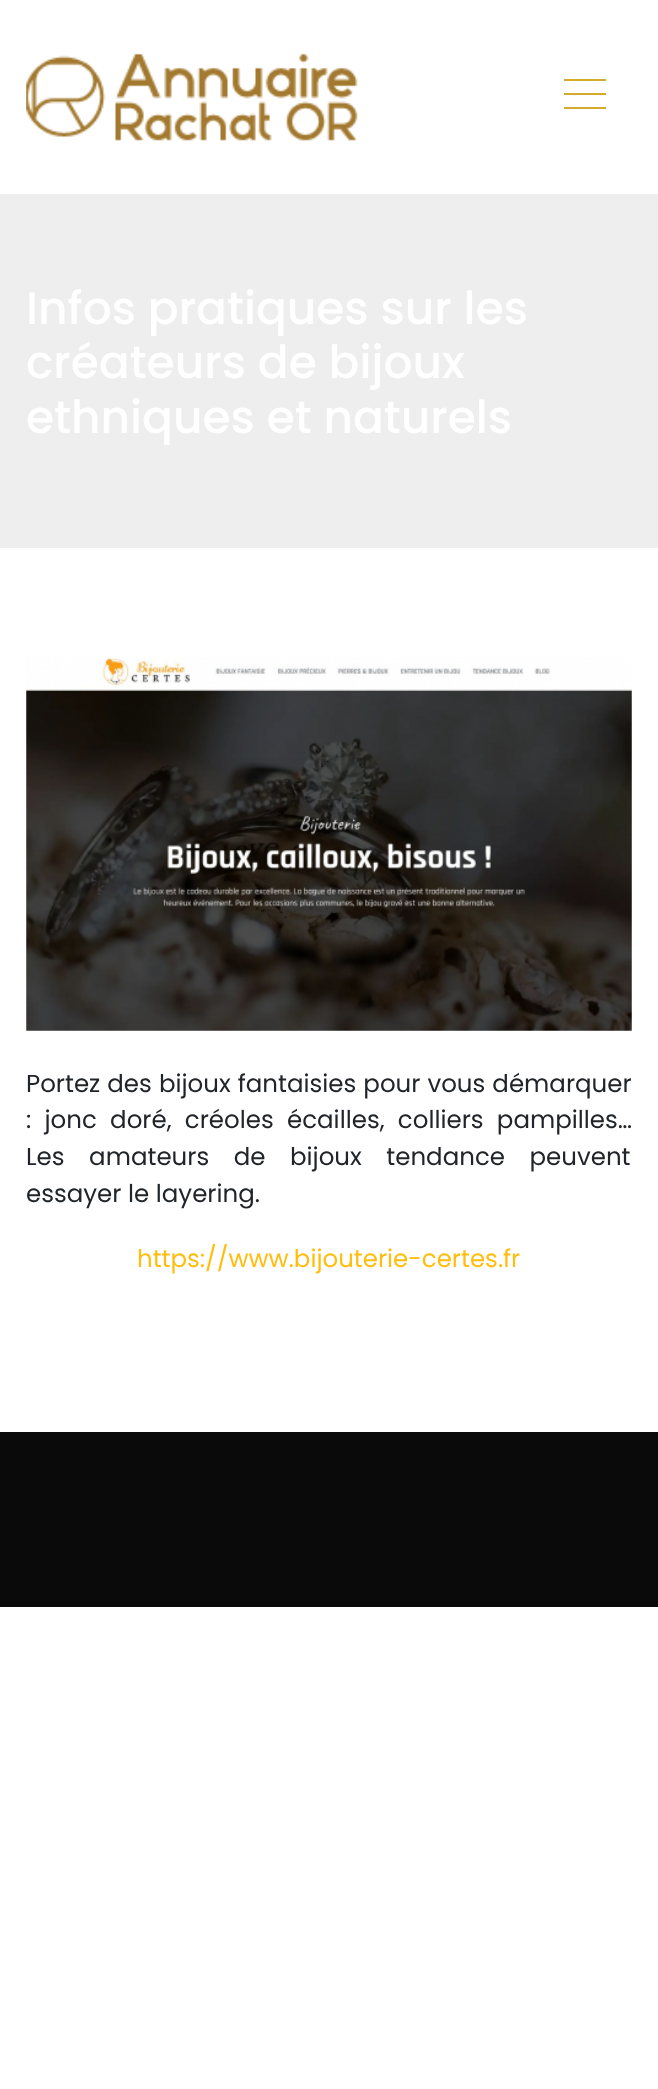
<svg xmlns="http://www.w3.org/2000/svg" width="658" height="2089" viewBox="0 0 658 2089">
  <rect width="100%" height="100%" fill="rgb(255,255,255)"/>
  <image x="26" y="53" width="332" height="88" href="pic1.png"/>
  <rect x="564" y="79" width="42" height="2" fill="rgb(212,172,43)"/>
  <rect x="564" y="93" width="42" height="2" fill="rgb(212,172,43)"/>
  <rect x="564" y="107" width="42" height="2" fill="rgb(212,172,43)"/>
  <rect x="0" y="194" width="658" height="354" fill="rgb(238,238,238)"/>
  <g font-family="Poppins" font-size="45.5" font-weight="500" fill="rgb(255,255,255)">
    <text>
      <tspan x="26" y="324">Infos pratiques sur les</tspan>
      <tspan x="26" y="378">créateurs de bijoux</tspan>
      <tspan x="26" y="433">ethniques et naturels</tspan>
    </text>
  </g>
  <image x="26" y="657" width="606" height="374" href="pic2.png"/>
  <g font-family="Poppins" font-size="24.5" fill="rgb(33,37,41)">
    <text>
      <tspan x="26" y="1092" word-spacing="0.5">Portez des bijoux fantaisies pour vous démarquer</tspan>
      <tspan x="26" y="1128" word-spacing="6.75">: jonc doré, créoles écailles, colliers pampilles…</tspan>
      <tspan x="26" y="1165" word-spacing="18">Les amateurs de bijoux tendance peuvent</tspan>
      <tspan x="26" y="1202">essayer le layering.</tspan>
    </text>
  </g>
  <text x="137" y="1267" font-family="Poppins" font-size="24.5" fill="rgb(255,190,15)">https://www.bijouterie-certes.fr</text>
  <rect x="0" y="1432" width="658" height="175" fill="rgb(10,10,10)"/>
</svg>
